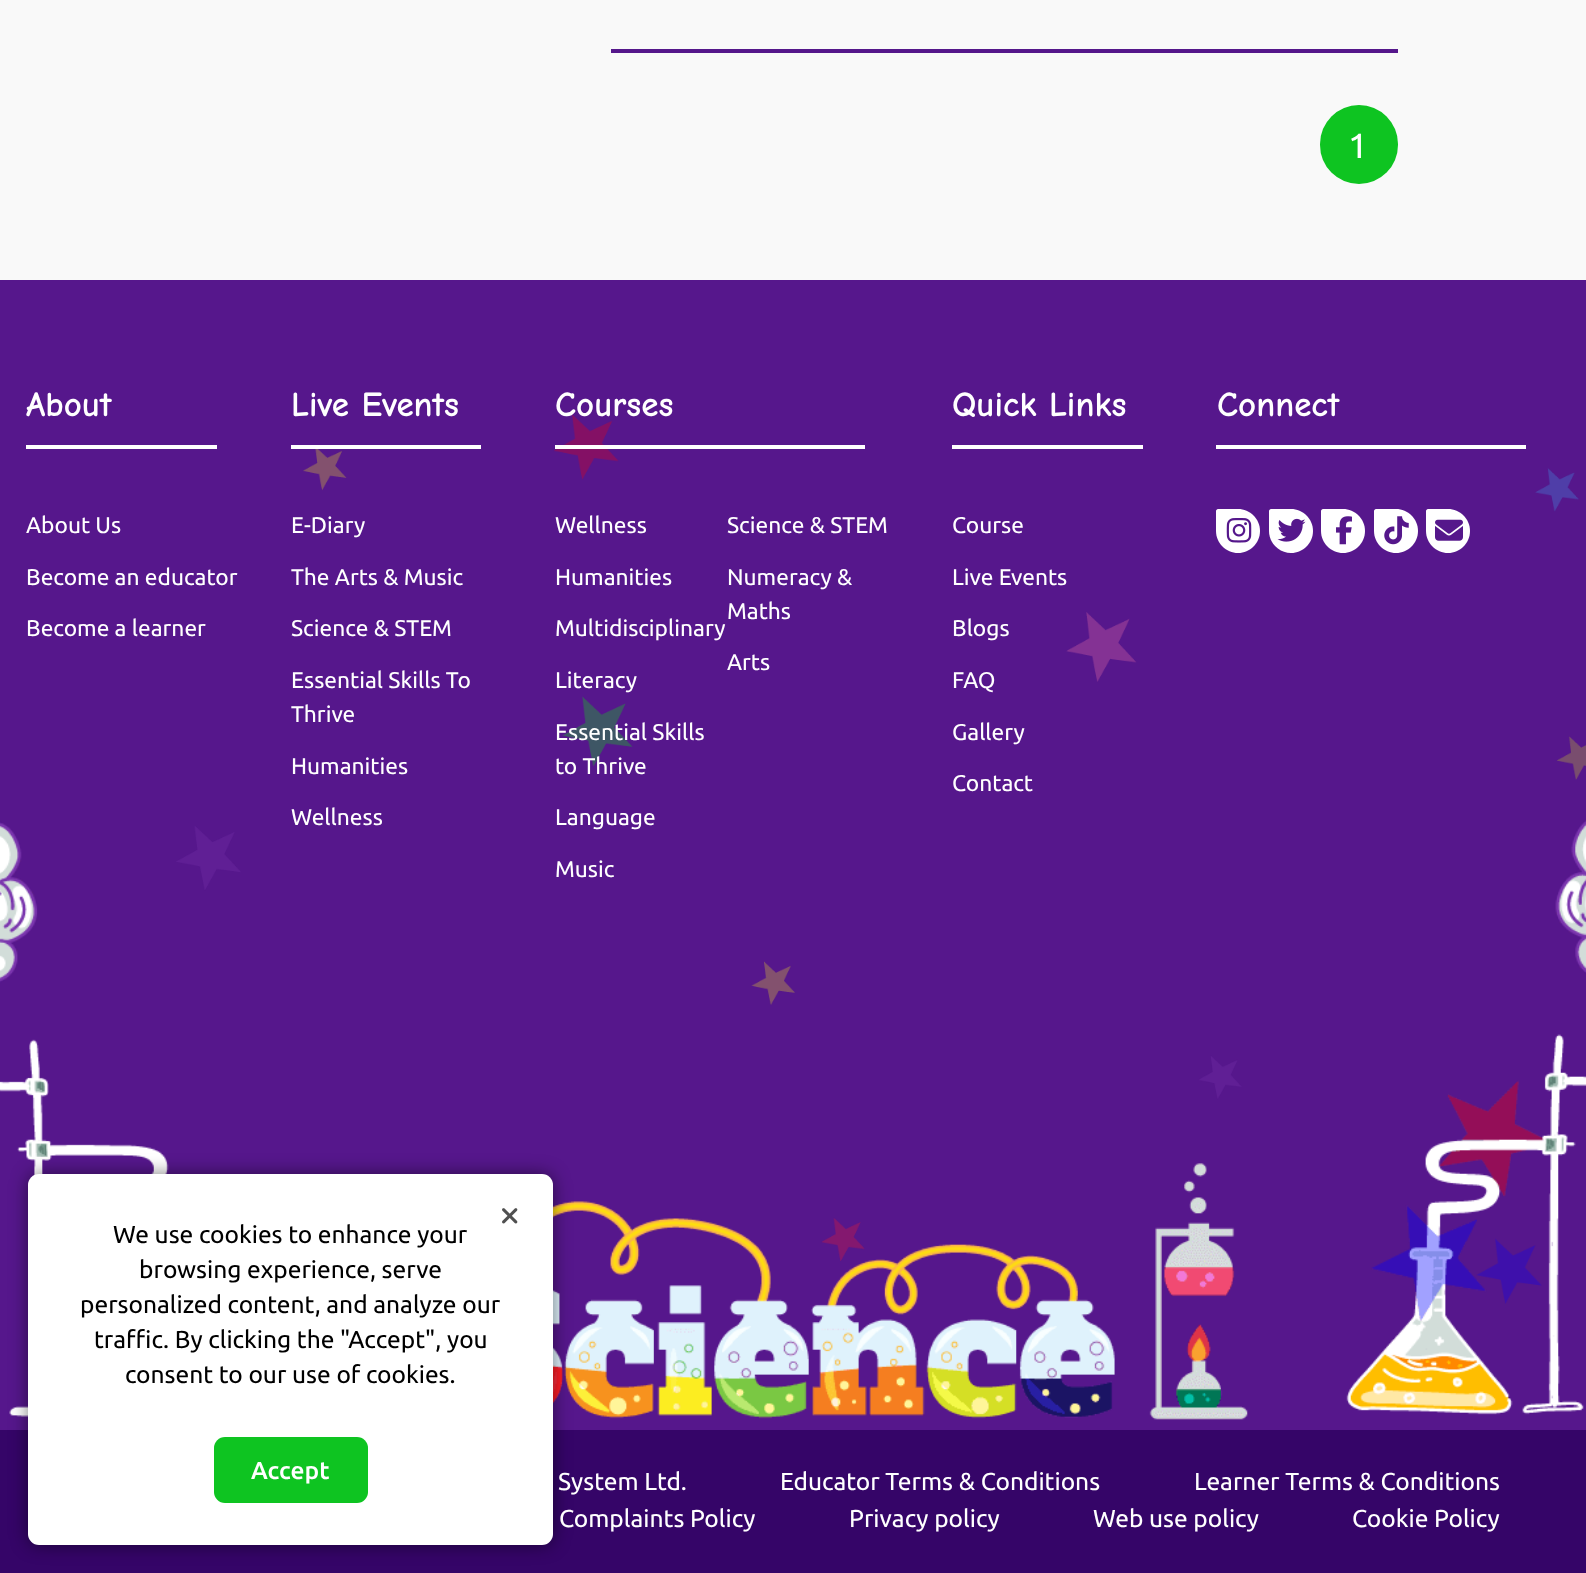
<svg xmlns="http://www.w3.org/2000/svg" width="1586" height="1573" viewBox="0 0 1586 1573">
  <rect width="100%" height="100%" fill="rgb(249,249,249)"/>
  <rect x="611" y="49" width="787" height="4" fill="rgb(85,23,139)"/>
  <rect x="1320" y="105" width="78" height="79" rx="39" fill="rgb(14,196,33)"/>
  <text x="1348" y="158" font-family="Ubuntu" font-size="35" fill="rgb(255,255,255)">1</text>
  <rect x="0" y="280" width="1586" height="1150" fill="rgb(86,23,140)"/>
  <image x="176" y="414" width="1410" height="890" href="pic1.png"/>
  <rect x="26" y="445" width="191" height="4" fill="rgb(255,255,255)"/>
  <text x="26" y="416" font-family="Comic Neue" font-size="35" font-weight="bold" fill="rgb(255,255,255)">About</text>
  <g font-family="Ubuntu" font-size="22.75" fill="rgb(255,255,255)">
    <text x="26" y="533">About Us</text>
    <text x="26" y="585">Become an educator</text>
    <text x="26" y="636">Become a learner</text>
  </g>
  <rect x="291" y="445" width="190" height="4" fill="rgb(255,255,255)"/>
  <text x="291" y="416" font-family="Comic Neue" font-size="35" font-weight="bold" fill="rgb(255,255,255)">Live Events</text>
  <g font-family="Ubuntu" font-size="22.75" fill="rgb(255,255,255)">
    <text x="291" y="533">E-Diary</text>
    <text x="291" y="585">The Arts &amp; Music</text>
    <text x="291" y="636">Science &amp; STEM</text>
    <text>
      <tspan x="291" y="688">Essential Skills To</tspan>
      <tspan x="291" y="722">Thrive</tspan>
    </text>
    <text x="291" y="774">Humanities</text>
  </g>
  <image x="0" y="820" width="1586" height="600" href="pic7.png"/>
  <text x="291" y="825" font-family="Ubuntu" font-size="22.75" fill="rgb(255,255,255)">Wellness</text>
  <rect x="555" y="445" width="310" height="4" fill="rgb(255,255,255)"/>
  <text x="555" y="416" font-family="Comic Neue" font-size="35" font-weight="bold" fill="rgb(255,255,255)">Courses</text>
  <g font-family="Ubuntu" font-size="22.75" fill="rgb(255,255,255)">
    <text x="555" y="533">Wellness</text>
    <text x="555" y="585">Humanities</text>
    <text x="555" y="636">Multidisciplinary</text>
    <text x="555" y="688">Literacy</text>
    <text>
      <tspan x="555" y="740">Essential Skills</tspan>
      <tspan x="555" y="774">to Thrive</tspan>
    </text>
    <text x="555" y="825">Language</text>
    <text x="555" y="877">Music</text>
    <text x="727" y="533">Science &amp; STEM</text>
    <text>
      <tspan x="727" y="585">Numeracy &amp;</tspan>
      <tspan x="727" y="619">Maths</tspan>
    </text>
    <text x="727" y="670">Arts</text>
  </g>
  <rect x="952" y="445" width="191" height="4" fill="rgb(255,255,255)"/>
  <text x="952" y="416" font-family="Comic Neue" font-size="35" font-weight="bold" fill="rgb(255,255,255)">Quick Links</text>
  <g font-family="Ubuntu" font-size="22.75" fill="rgb(255,255,255)">
    <text x="952" y="533">Course</text>
    <text x="952" y="585">Live Events</text>
    <text x="952" y="636">Blogs</text>
    <text x="952" y="688">FAQ</text>
    <text x="952" y="740">Gallery</text>
    <text x="952" y="791">Contact</text>
  </g>
  <rect x="1216" y="445" width="310" height="4" fill="rgb(255,255,255)"/>
  <text x="1217" y="416" font-family="Comic Neue" font-size="35" font-weight="bold" fill="rgb(255,255,255)">Connect</text>
  <path d="M1218 509H1238C1250 509 1260 519 1260 531C1260 543 1250 553 1238 553C1226 553 1216 543 1216 531V511C1216 510 1217 509 1218 509Z" fill="rgb(255,255,255)"/>
  <image x="1226" y="518" width="26" height="25" href="pic2.png"/>
  <path d="M1271 509H1291C1303 509 1313 519 1313 531C1313 543 1303 553 1291 553C1279 553 1269 543 1269 531V511C1269 510 1270 509 1271 509Z" fill="rgb(255,255,255)"/>
  <image x="1277" y="518" width="29" height="24" href="pic3.png"/>
  <path d="M1323 509H1343C1355 509 1365 519 1365 531C1365 543 1355 553 1343 553C1331 553 1321 543 1321 531V511C1321 510 1322 509 1323 509Z" fill="rgb(255,255,255)"/>
  <image x="1336" y="516" width="16" height="29" href="pic4.png"/>
  <path d="M1376 509H1396C1408 509 1418 519 1418 531C1418 543 1408 553 1396 553C1384 553 1374 543 1374 531V511C1374 510 1375 509 1376 509Z" fill="rgb(255,255,255)"/>
  <image x="1384" y="516" width="25" height="29" href="pic5.png"/>
  <path d="M1428 509H1448C1460 509 1470 519 1470 531C1470 543 1460 553 1448 553C1436 553 1426 543 1426 531V511C1426 510 1427 509 1428 509Z" fill="rgb(255,255,255)"/>
  <image x="1435" y="519" width="28" height="22" href="pic6.png"/>
  <rect x="0" y="1430" width="1586" height="143" fill="rgb(53,5,104)"/>
  <rect x="28" y="1174" width="525" height="371" rx="11" fill="rgba(0,0,0,0.5)" filter="blur(9px)"/>
  <rect x="28" y="1174" width="525" height="371" rx="11" fill="rgb(255,255,255)"/>
  <image x="502" y="1208" width="16" height="16" href="pic8.png"/>
  <g font-family="Ubuntu" font-size="24.5" fill="rgb(0,0,0)">
    <text x="113" y="1243">We use cookies to enhance your</text>
    <text x="139" y="1278">browsing experience, serve</text>
    <text x="80" y="1313">personalized content, and analyze our</text>
    <text x="94" y="1348">traffic. By clicking the "Accept", you</text>
    <text x="125" y="1383">consent to our use of cookies.</text>
  </g>
  <rect x="214" y="1437" width="154" height="66" rx="11" fill="rgb(14,196,33)"/>
  <text x="251" y="1479" font-family="Ubuntu" font-size="24.5" font-weight="500" fill="rgb(255,255,255)">Accept</text>
  <g font-family="Ubuntu" font-size="24.5" fill="rgb(255,255,255)">
    <text x="558" y="1490">System Ltd.</text>
    <text x="780" y="1490">Educator Terms &amp; Conditions</text>
    <text x="1194" y="1490">Learner Terms &amp; Conditions</text>
    <text x="559" y="1527">Complaints Policy</text>
    <text x="849" y="1527">Privacy policy</text>
    <text x="1093" y="1527">Web use policy</text>
    <text x="1352" y="1527">Cookie Policy</text>
  </g>
</svg>
